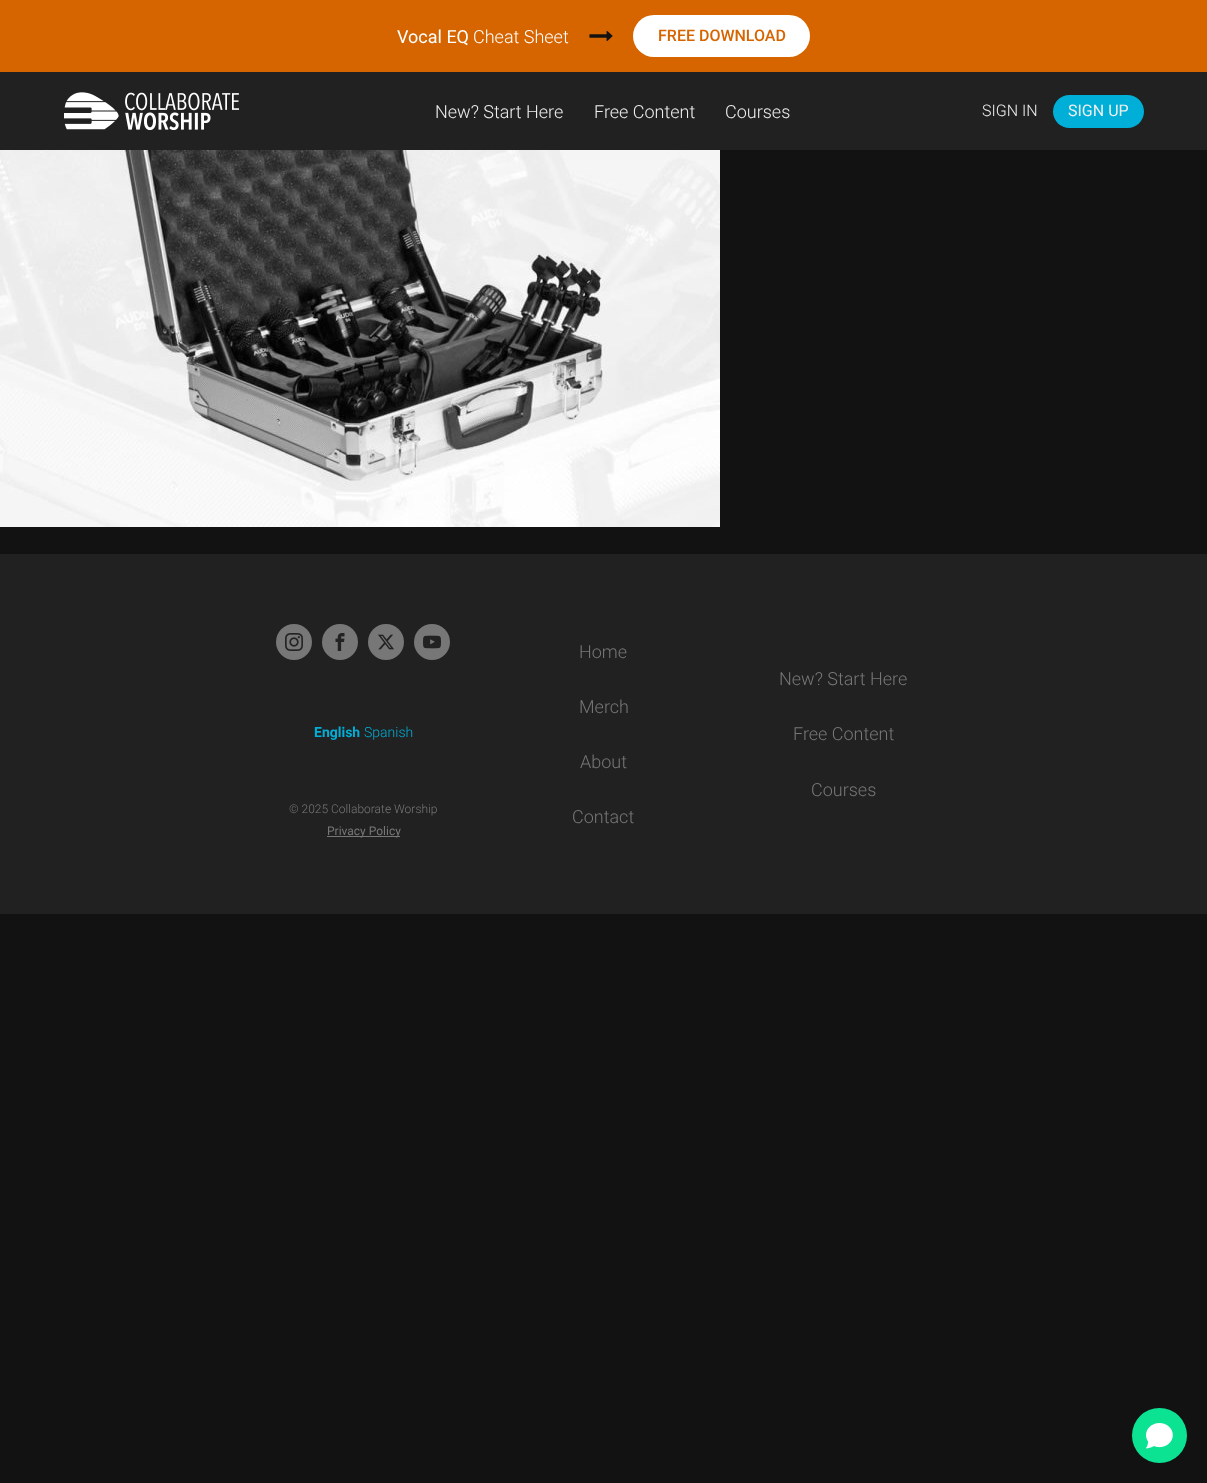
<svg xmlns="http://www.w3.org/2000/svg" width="1207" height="1483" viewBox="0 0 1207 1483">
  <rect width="100%" height="100%" fill="rgb(18,18,18)"/>
  <rect x="0" y="0" width="1207" height="72" fill="rgb(214,101,0)"/>
  <text x="397" y="43" font-family="Roboto" font-size="18" fill="rgb(255,255,255)">Vocal EQ</text>
  <text x="473" y="43" font-family="Roboto" font-size="18" font-weight="300" fill="rgb(255,255,255)">Cheat Sheet</text>
  <image x="589" y="31" width="24" height="10" href="pic1.png"/>
  <rect x="633" y="15" width="177" height="42" rx="21" fill="rgb(255,255,255)"/>
  <text x="658" y="41" font-family="Roboto" font-size="16" font-weight="500" fill="rgb(214,101,0)">FREE DOWNLOAD</text>
  <rect x="0" y="72" width="1207" height="78" fill="rgb(33,33,33)"/>
  <image x="64" y="92" width="175" height="38" href="pic2.png"/>
  <g font-family="Roboto" font-size="18" font-weight="300" fill="rgb(238,238,238)">
    <text x="435" y="118">New? Start Here</text>
    <text x="594" y="118">Free Content</text>
    <text x="725" y="118">Courses</text>
  </g>
  <text x="982" y="116" font-family="Roboto" font-size="16" font-weight="300" fill="rgb(238,238,238)">SIGN IN</text>
  <rect x="1053" y="95" width="91" height="33" rx="16.5" fill="rgb(0,175,215)"/>
  <text x="1068" y="116" font-family="Roboto" font-size="16" fill="rgb(238,238,238)">SIGN UP</text>
  <image x="0" y="150" width="720" height="377" href="pic3.png"/>
  <rect x="0" y="554" width="1207" height="360" fill="rgb(33,33,33)"/>
  <circle cx="294" cy="642" r="18" fill="rgb(119,119,119)"/>
  <image x="285" y="633" width="18" height="18" href="pic4.png"/>
  <circle cx="340" cy="642" r="18" fill="rgb(119,119,119)"/>
  <image x="335" y="633" width="10" height="18" href="pic5.png"/>
  <circle cx="386" cy="642" r="18" fill="rgb(119,119,119)"/>
  <image x="378" y="634" width="16" height="16" href="pic6.png"/>
  <circle cx="432" cy="642" r="18" fill="rgb(119,119,119)"/>
  <image x="423" y="635" width="18" height="14" href="pic7.png"/>
  <text x="314" y="737" font-family="Roboto" font-size="14" font-weight="bold" fill="rgb(0,175,215)">English</text>
  <text x="364" y="737" font-family="Roboto" font-size="14" font-weight="300" fill="rgb(0,175,215)">Spanish</text>
  <text x="289" y="813" font-family="Roboto" font-size="12" font-weight="300" fill="rgb(119,119,119)">© 2025 Collaborate Worship</text>
  <rect x="327" y="836" width="73" height="1" fill="rgb(119,119,119)"/>
  <text x="327" y="835" font-family="Roboto" font-size="12" fill="rgb(119,119,119)">Privacy Policy</text>
  <g font-family="Roboto" font-size="18" font-weight="300" fill="rgb(119,119,119)">
    <text x="579" y="658">Home</text>
    <text x="579" y="713">Merch</text>
    <text x="580" y="768">About</text>
    <text x="572" y="823">Contact</text>
    <text x="779" y="685">New? Start Here</text>
    <text x="793" y="740">Free Content</text>
    <text x="811" y="796">Courses</text>
  </g>
  <circle cx="1159.5" cy="1435.5" r="27.5" fill="rgb(11,227,147)"/>
  <image x="1146" y="1423" width="27" height="26" href="pic8.png"/>
</svg>
